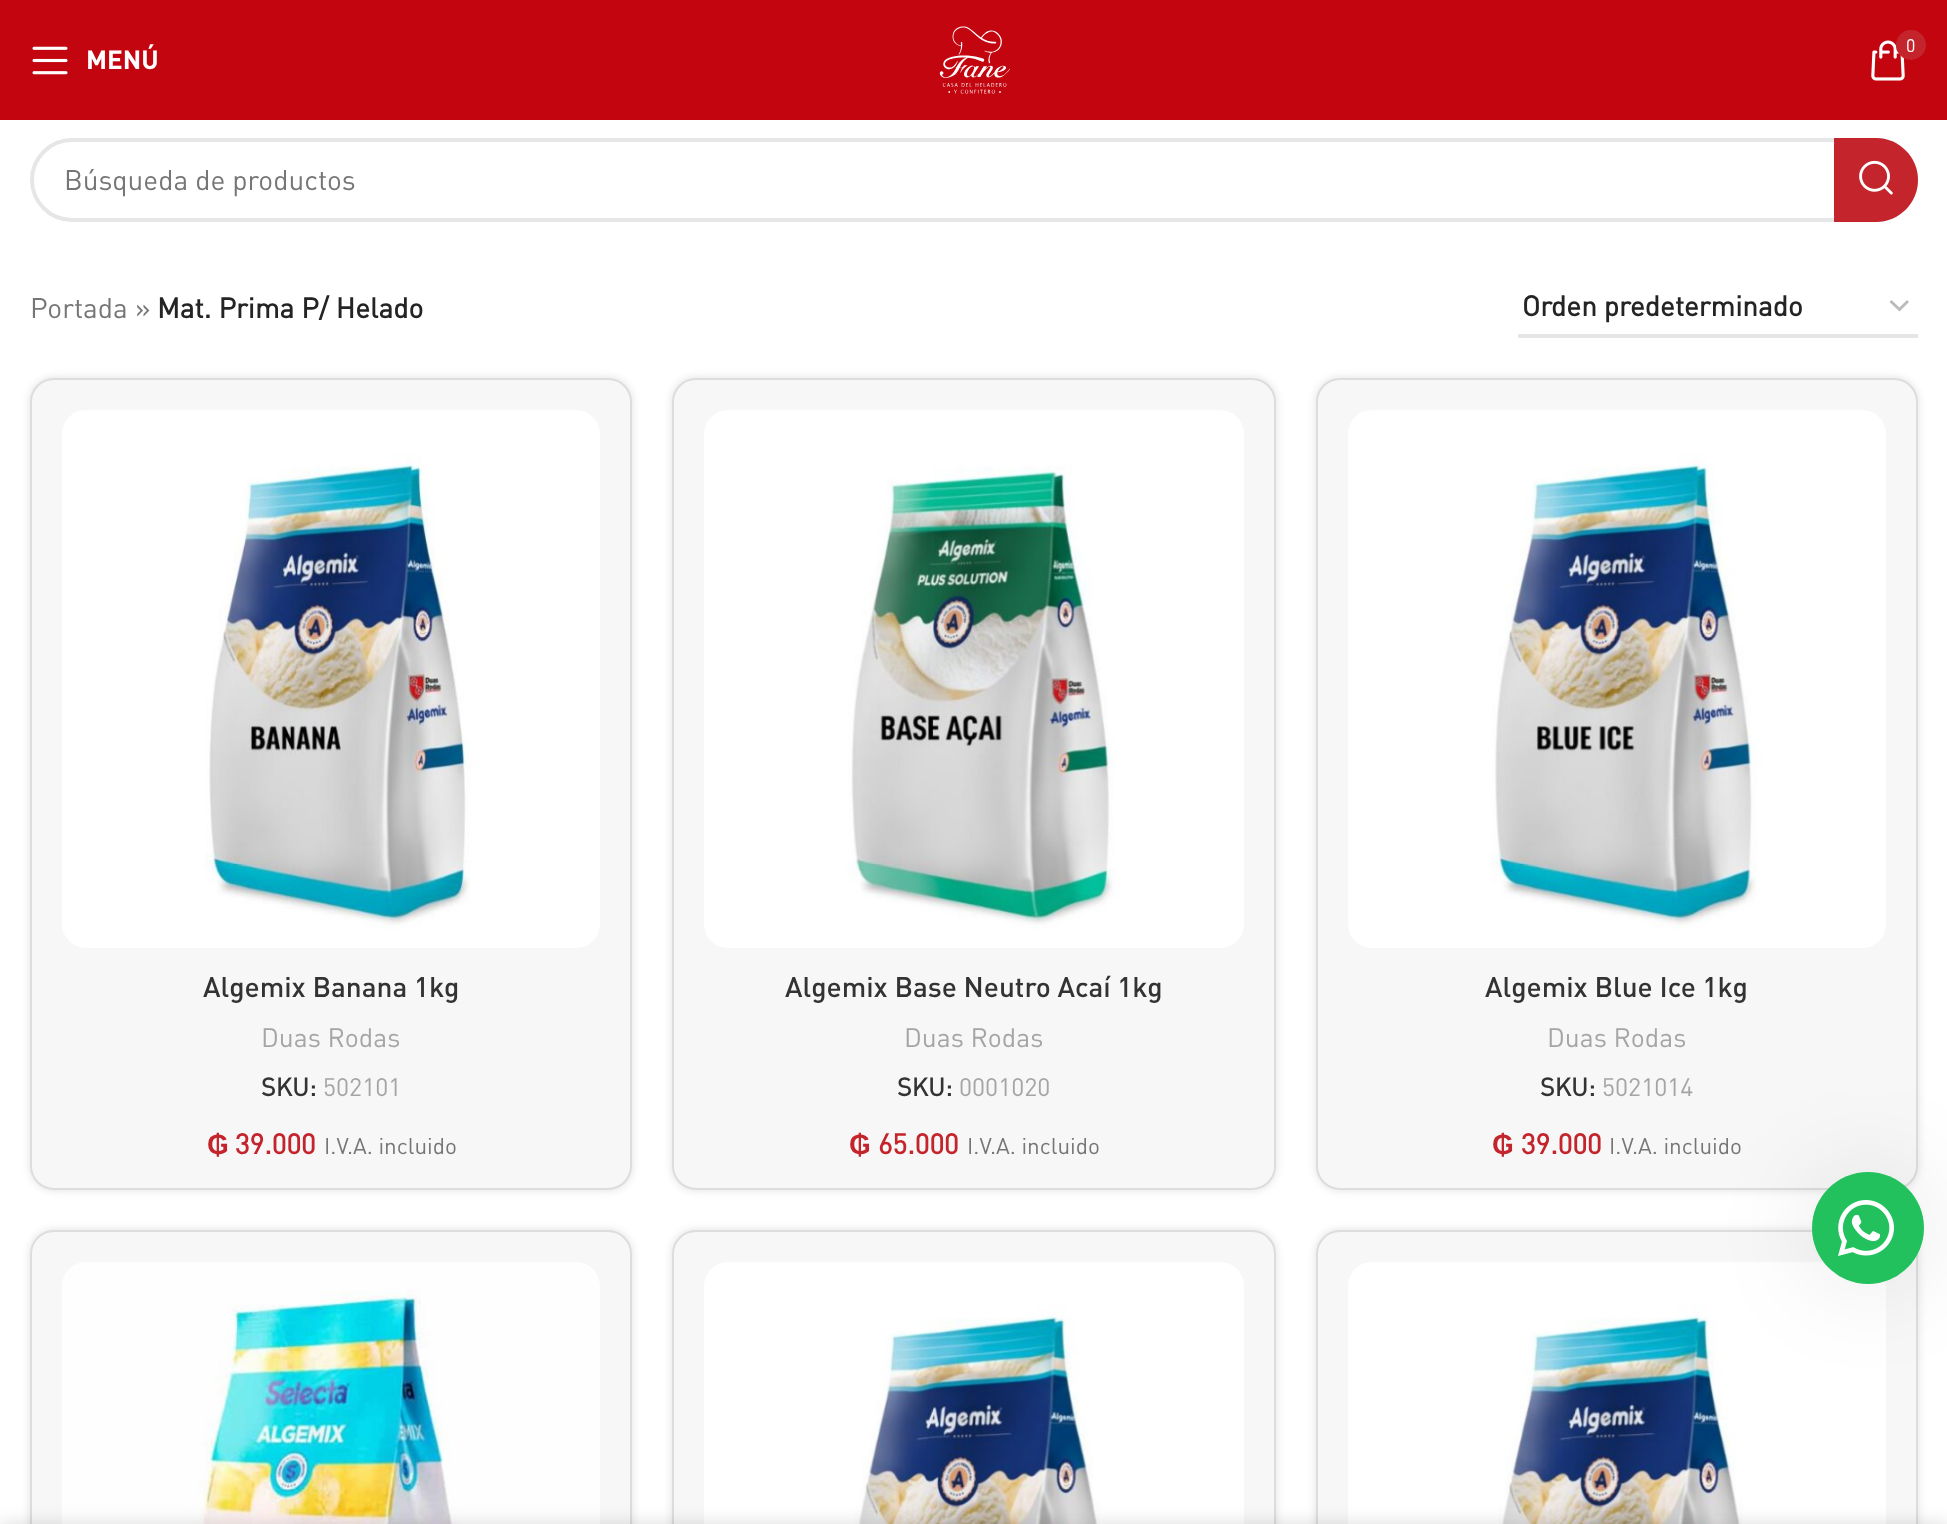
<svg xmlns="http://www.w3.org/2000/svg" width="1947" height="1524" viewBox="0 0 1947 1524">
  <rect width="100%" height="100%" fill="rgb(255,255,255)"/>
  <rect x="0" y="0" width="1947" height="120" fill="rgb(195,5,15)"/>
  <image x="32" y="46" width="36" height="29" href="pic1.png"/>
  <text x="86" y="69" font-family="'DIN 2'" font-size="26" font-weight="bold" fill="rgb(255,255,255)">MENÚ</text>
  <image x="939" y="26" width="71" height="68" href="pic2.png"/>
  <image x="1871" y="40" width="34" height="41" href="pic3.png"/>
  <circle cx="1911" cy="45" r="15" fill="rgb(196,36,44)"/>
  <text x="1906" y="52" font-family="DIN" font-size="18" fill="rgb(255,255,255)">0</text>
  <rect x="32" y="140" width="1884" height="80" rx="40" fill="none" stroke="rgb(230,230,230)" stroke-width="4"/>
  <text x="64" y="190" font-family="DIN" font-size="28" fill="rgb(118,118,118)">Búsqueda de productos</text>
  <path d="M1834 138H1876C1899 138 1918 157 1918 180C1918 203 1899 222 1876 222H1834Z" fill="rgb(196,36,44)"/>
  <image x="1859" y="160" width="34" height="35" href="pic4.png"/>
  <g font-family="DIN" font-size="28" fill="rgb(118,118,118)">
    <text x="30" y="318">Portada</text>
    <text x="135" y="318">»</text>
  </g>
  <text x="157" y="318" font-family="DIN" font-size="28" font-weight="bold" fill="rgb(36,36,36)">Mat. Prima P/ Helado</text>
  <path d="M1890.5 301L1899.5 309.5L1908 301" fill="none" stroke="rgb(187,187,187)" stroke-width="2.9"/>
  <rect x="1518" y="334" width="400" height="4" fill="rgb(230,230,230)"/>
  <text x="1522" y="316" font-family="DIN" font-size="28" font-weight="bold" fill="rgb(36,36,36)">Orden predeterminado</text>
  <rect x="30" y="378" width="602" height="812" rx="24" fill="rgba(0,0,0,0.12)" filter="blur(4px)"/>
  <rect x="31" y="379" width="600" height="810" rx="23" fill="rgb(247,247,247)" stroke="rgb(221,221,221)" stroke-width="2"/>
  <image x="62" y="410" width="538" height="538" href="pic5.png"/>
  <text x="203" y="997" font-family="DIN" font-size="28" font-weight="500" fill="rgb(51,51,51)">Algemix Banana 1kg</text>
  <text x="261" y="1047" font-family="DIN" font-size="26.5" fill="rgb(165,165,165)">Duas Rodas</text>
  <text x="261" y="1096" font-family="DIN" font-size="25" font-weight="bold" fill="rgb(51,51,51)">SKU:</text>
  <text x="323" y="1096" font-family="DIN" font-size="25" fill="rgb(165,165,165)">502101</text>
  <text x="207" y="1154" font-family="Liberation Sans" font-size="28" font-weight="bold" fill="rgb(196,36,44)">₲</text>
  <text x="235" y="1154" font-family="DIN" font-size="28" font-weight="bold" fill="rgb(196,36,44)">39.000</text>
  <text x="324" y="1154" font-family="DIN" font-size="22.5" fill="rgb(118,118,118)">I.V.A. incluido</text>
  <rect x="672" y="378" width="604" height="812" rx="24" fill="rgba(0,0,0,0.12)" filter="blur(4px)"/>
  <rect x="673" y="379" width="602" height="810" rx="23" fill="rgb(247,247,247)" stroke="rgb(221,221,221)" stroke-width="2"/>
  <image x="704" y="410" width="540" height="538" href="pic6.png"/>
  <text x="785" y="997" font-family="DIN" font-size="28" font-weight="500" fill="rgb(51,51,51)">Algemix Base Neutro Acaí 1kg</text>
  <text x="904" y="1047" font-family="DIN" font-size="26.5" fill="rgb(165,165,165)">Duas Rodas</text>
  <text x="897" y="1096" font-family="DIN" font-size="25" font-weight="bold" fill="rgb(51,51,51)">SKU:</text>
  <text x="959" y="1096" font-family="DIN" font-size="25" fill="rgb(165,165,165)">0001020</text>
  <text x="849" y="1154" font-family="Liberation Sans" font-size="28" font-weight="bold" fill="rgb(196,36,44)">₲</text>
  <text x="878" y="1154" font-family="DIN" font-size="28" font-weight="bold" fill="rgb(196,36,44)">65.000</text>
  <text x="967" y="1154" font-family="DIN" font-size="22.5" fill="rgb(118,118,118)">I.V.A. incluido</text>
  <rect x="1316" y="378" width="602" height="812" rx="24" fill="rgba(0,0,0,0.12)" filter="blur(4px)"/>
  <rect x="1317" y="379" width="600" height="810" rx="23" fill="rgb(247,247,247)" stroke="rgb(221,221,221)" stroke-width="2"/>
  <image x="1348" y="410" width="538" height="538" href="pic7.png"/>
  <text x="1485" y="997" font-family="DIN" font-size="28" font-weight="500" fill="rgb(51,51,51)">Algemix Blue Ice 1kg</text>
  <text x="1547" y="1047" font-family="DIN" font-size="26.5" fill="rgb(165,165,165)">Duas Rodas</text>
  <text x="1540" y="1096" font-family="DIN" font-size="25" font-weight="bold" fill="rgb(51,51,51)">SKU:</text>
  <text x="1602" y="1096" font-family="DIN" font-size="25" fill="rgb(165,165,165)">5021014</text>
  <text x="1492" y="1154" font-family="Liberation Sans" font-size="28" font-weight="bold" fill="rgb(196,36,44)">₲</text>
  <text x="1521" y="1154" font-family="DIN" font-size="28" font-weight="bold" fill="rgb(196,36,44)">39.000</text>
  <text x="1609" y="1154" font-family="DIN" font-size="22.5" fill="rgb(118,118,118)">I.V.A. incluido</text>
  <rect x="30" y="1230" width="602" height="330" rx="24" fill="rgba(0,0,0,0.12)" filter="blur(4px)"/>
  <rect x="31" y="1231" width="600" height="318" rx="23" fill="rgb(247,247,247)" stroke="rgb(221,221,221)" stroke-width="2"/>
  <image x="62" y="1262" width="538" height="262" href="pic8.png"/>
  <rect x="672" y="1230" width="604" height="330" rx="24" fill="rgba(0,0,0,0.12)" filter="blur(4px)"/>
  <rect x="673" y="1231" width="602" height="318" rx="23" fill="rgb(247,247,247)" stroke="rgb(221,221,221)" stroke-width="2"/>
  <image x="704" y="1262" width="540" height="262" href="pic9.png"/>
  <rect x="1316" y="1230" width="602" height="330" rx="24" fill="rgba(0,0,0,0.12)" filter="blur(4px)"/>
  <rect x="1317" y="1231" width="600" height="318" rx="23" fill="rgb(247,247,247)" stroke="rgb(221,221,221)" stroke-width="2"/>
  <image x="1348" y="1262" width="538" height="262" href="pic10.png"/>
  <rect x="1812" y="1172" width="112" height="112" rx="56" fill="rgba(0,0,0,0.1)" filter="blur(50px)"/>
  <circle cx="1868" cy="1228" r="56" fill="rgb(34,193,94)"/>
  <image x="1838" y="1200" width="56" height="56" href="pic11.png"/>
  <rect x="0" y="1524" width="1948" height="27" fill="rgba(0,0,0,0.14)" filter="blur(9px)"/>
</svg>
